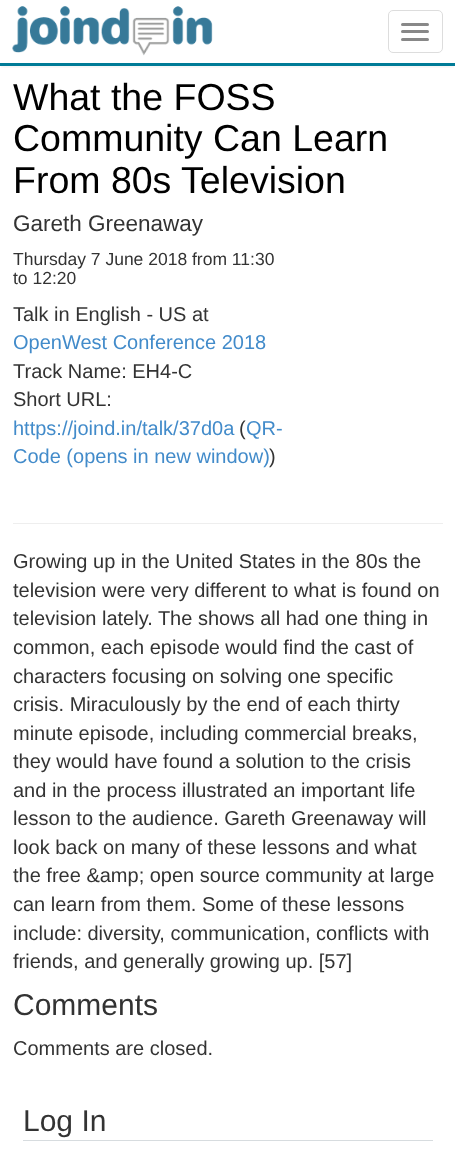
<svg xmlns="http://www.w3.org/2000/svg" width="455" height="1161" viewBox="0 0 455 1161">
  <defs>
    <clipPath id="clip1"><rect x="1" y="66" width="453" height="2"/></clipPath>
  </defs>
  <rect width="100%" height="100%" fill="rgb(255,255,255)"/>
  <g clip-path="url(#clip1)">
    <rect x="0" y="1" width="455" height="65" fill="rgba(0,0,0,0.07)" filter="blur(3px)"/>
  </g>
  <rect x="0" y="63" width="455" height="3" fill="rgb(0,123,151)"/>
  <image x="12" y="6" width="201" height="50" href="pic1.png"/>
  <rect x="388.5" y="10.5" width="54" height="42" rx="4.5" fill="none" stroke="rgb(221,221,221)"/>
  <rect x="401" y="23" width="28" height="3" rx="1.5" fill="rgb(136,136,136)"/>
  <rect x="401" y="30" width="28" height="3" rx="1.5" fill="rgb(136,136,136)"/>
  <rect x="401" y="38" width="28" height="3" rx="1.5" fill="rgb(136,136,136)"/>
  <rect x="13" y="523" width="430" height="1" fill="rgb(238,238,238)"/>
  <g font-family="Liberation Sans" font-size="37.5" fill="rgb(0,0,0)">
    <text>
      <tspan x="13" y="110">What the FOSS</tspan>
      <tspan x="13" y="151">Community Can Learn</tspan>
      <tspan x="13" y="193">From 80s Television</tspan>
    </text>
  </g>
  <text x="13" y="231" font-family="Liberation Sans" font-size="22.5" fill="rgb(51,51,51)">Gareth Greenaway</text>
  <g font-family="Liberation Sans" font-size="17.5" fill="rgb(51,51,51)">
    <text>
      <tspan x="13" y="265">Thursday 7 June 2018 from 11:30</tspan>
      <tspan x="13" y="284">to 12:20</tspan>
    </text>
  </g>
  <text x="13" y="321" font-family="Liberation Sans" font-size="20" fill="rgb(51,51,51)">Talk in English - US at</text>
  <text x="13" y="349" font-family="Liberation Sans" font-size="20" fill="rgb(66,139,202)">OpenWest Conference 2018</text>
  <g font-family="Liberation Sans" font-size="20" fill="rgb(51,51,51)">
    <text>
      <tspan x="13" y="378">Track Name: EH4-C</tspan>
      <tspan x="13" y="406">Short URL:</tspan>
    </text>
  </g>
  <text x="13" y="435" font-family="Liberation Sans" font-size="20" fill="rgb(66,139,202)">https://joind.in/talk/37d0a</text>
  <text x="239" y="435" font-family="Liberation Sans" font-size="20" fill="rgb(51,51,51)">(</text>
  <g font-family="Liberation Sans" font-size="20" fill="rgb(66,139,202)">
    <text x="246" y="435">QR-</text>
    <text x="13" y="463">Code (opens in new window)</text>
  </g>
  <g font-family="Liberation Sans" font-size="20" fill="rgb(51,51,51)">
    <text x="269" y="463">)</text>
    <text>
      <tspan x="13" y="568">Growing up in the United States in the 80s the</tspan>
      <tspan x="13" y="597">television were very different to what is found on</tspan>
      <tspan x="13" y="625">television lately. The shows all had one thing in</tspan>
      <tspan x="13" y="654">common, each episode would find the cast of</tspan>
      <tspan x="13" y="683">characters focusing on solving one specific</tspan>
      <tspan x="13" y="711">crisis. Miraculously by the end of each thirty</tspan>
      <tspan x="13" y="740">minute episode, including commercial breaks,</tspan>
      <tspan x="13" y="768">they would have found a solution to the crisis</tspan>
      <tspan x="13" y="797">and in the process illustrated an important life</tspan>
      <tspan x="13" y="825">lesson to the audience. Gareth Greenaway will</tspan>
      <tspan x="13" y="854">look back on many of these lessons and what</tspan>
      <tspan x="13" y="882">the free &amp;amp; open source community at large</tspan>
      <tspan x="13" y="911">can learn from them. Some of these lessons</tspan>
      <tspan x="13" y="940">include: diversity, communication, conflicts with</tspan>
      <tspan x="13" y="968">friends, and generally growing up. [57]</tspan>
    </text>
  </g>
  <text x="13" y="1015" font-family="Liberation Sans" font-size="30" fill="rgb(51,51,51)">Comments</text>
  <text x="13" y="1055" font-family="Liberation Sans" font-size="20" fill="rgb(51,51,51)">Comments are closed.</text>
  <rect x="23" y="1140" width="410" height="1" fill="rgb(215,220,223)"/>
  <text x="23" y="1131" font-family="Liberation Sans" font-size="30" fill="rgb(51,51,51)">Log In</text>
</svg>
